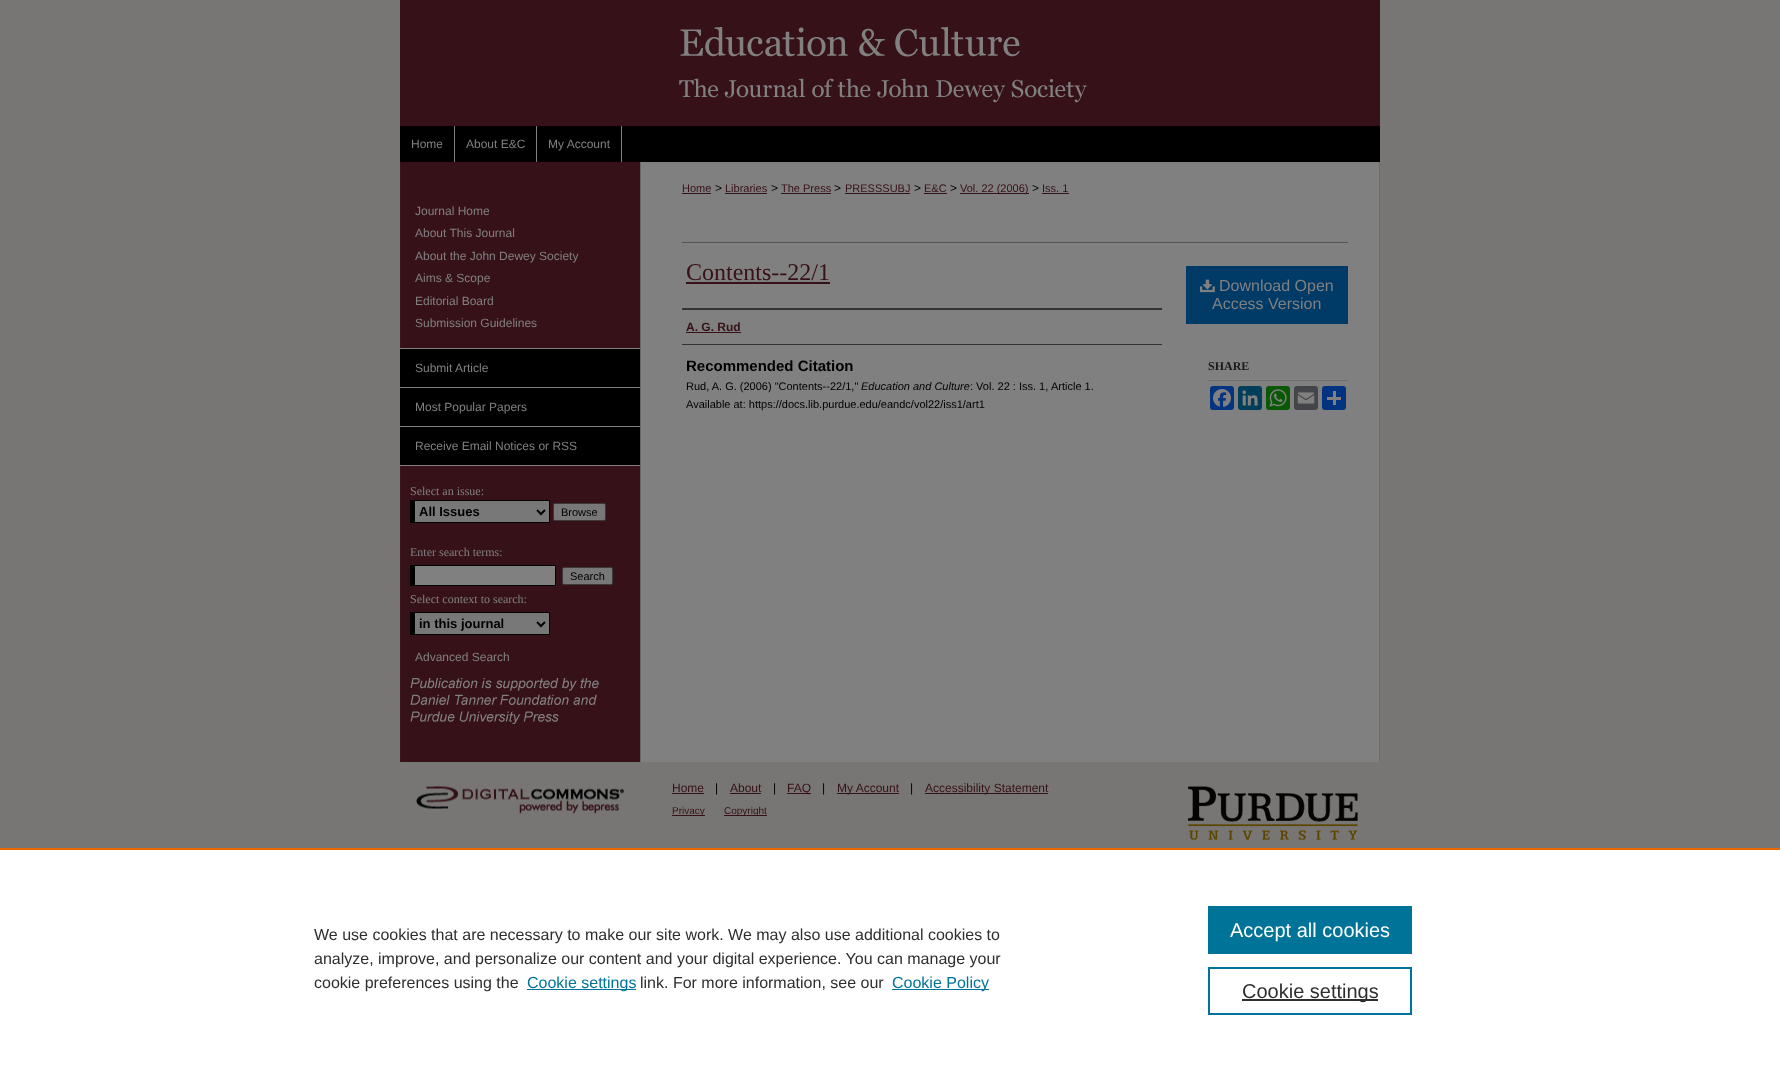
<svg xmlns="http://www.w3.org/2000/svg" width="1780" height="1068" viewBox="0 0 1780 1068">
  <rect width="100%" height="100%" fill="rgb(119,118,116)"/>
  <rect x="400" y="0" width="980" height="126" fill="rgb(55,17,24)"/>
  <image x="679" y="27" width="408" height="76" href="pic1.png"/>
  <rect x="400" y="126" width="980" height="36" fill="rgb(0,0,0)"/>
  <rect x="454" y="126" width="1" height="36" fill="rgb(128,128,128)"/>
  <text x="411" y="148" font-family="Liberation Sans" font-size="12" fill="rgb(128,128,128)">Home</text>
  <rect x="536" y="126" width="1" height="36" fill="rgb(128,128,128)"/>
  <text x="466" y="148" font-family="Liberation Sans" font-size="12" fill="rgb(128,128,128)">About E&amp;C</text>
  <rect x="621" y="126" width="1" height="36" fill="rgb(128,128,128)"/>
  <text x="548" y="148" font-family="Liberation Sans" font-size="12" fill="rgb(128,128,128)">My Account</text>
  <image x="400" y="162" width="980" height="600" href="pic2.png"/>
  <g font-family="Liberation Sans" font-size="12" fill="rgb(128,128,128)">
    <text>
      <tspan x="415" y="215">Journal Home</tspan>
      <tspan x="415" y="237">About This Journal</tspan>
      <tspan x="415" y="260">About the John Dewey Society</tspan>
      <tspan x="415" y="282">Aims &amp; Scope</tspan>
      <tspan x="415" y="305">Editorial Board</tspan>
      <tspan x="415" y="327">Submission Guidelines</tspan>
    </text>
  </g>
  <rect x="400" y="348" width="240" height="1" fill="rgb(128,128,128)"/>
  <rect x="400" y="349" width="240" height="38" fill="rgb(0,0,0)"/>
  <rect x="400" y="387" width="240" height="1" fill="rgb(128,128,128)"/>
  <text x="415" y="372" font-family="Liberation Sans" font-size="12" fill="rgb(128,128,128)">Submit Article</text>
  <rect x="400" y="388" width="240" height="38" fill="rgb(0,0,0)"/>
  <rect x="400" y="426" width="240" height="1" fill="rgb(128,128,128)"/>
  <text x="415" y="411" font-family="Liberation Sans" font-size="12" fill="rgb(128,128,128)">Most Popular Papers</text>
  <rect x="400" y="427" width="240" height="38" fill="rgb(0,0,0)"/>
  <rect x="400" y="465" width="240" height="1" fill="rgb(128,128,128)"/>
  <text x="415" y="450" font-family="Liberation Sans" font-size="12" fill="rgb(128,128,128)">Receive Email Notices or RSS</text>
  <text x="410" y="495" font-family="Liberation Serif" font-size="12" fill="rgb(128,128,128)">Select an issue:</text>
  <rect x="415" y="501" width="134" height="21" fill="rgb(120,120,120)"/>
  <rect x="410" y="500" width="140" height="1" fill="rgb(0,0,0)"/>
  <rect x="549" y="500" width="1" height="23" fill="rgb(0,0,0)"/>
  <rect x="410" y="522" width="140" height="1" fill="rgb(0,0,0)"/>
  <rect x="410" y="500" width="5" height="23" fill="rgb(0,0,0)"/>
  <path d="M537 510L541 514L545 510" fill="none" stroke="rgb(0,0,0)" stroke-width="2"/>
  <text x="419" y="516" font-family="Liberation Sans" font-size="13" font-weight="bold" fill="rgb(0,0,0)">All Issues</text>
  <rect x="553.5" y="503.5" width="52" height="17" rx="1.5" fill="rgb(120,120,120)" stroke="rgb(59,59,59)"/>
  <text x="561" y="516" font-family="Liberation Sans" font-size="11" fill="rgb(0,0,0)">Browse</text>
  <text x="410" y="556" font-family="Liberation Serif" font-size="12" fill="rgb(128,128,128)">Enter search terms:</text>
  <rect x="415" y="566" width="140" height="19" fill="rgb(128,128,128)"/>
  <rect x="410" y="565" width="146" height="1" fill="rgb(0,0,0)"/>
  <rect x="555" y="565" width="1" height="21" fill="rgb(0,0,0)"/>
  <rect x="410" y="585" width="146" height="1" fill="rgb(0,0,0)"/>
  <rect x="410" y="565" width="5" height="21" fill="rgb(0,0,0)"/>
  <rect x="562.5" y="567.5" width="50" height="17" rx="1.5" fill="rgb(120,120,120)" stroke="rgb(59,59,59)"/>
  <text x="570" y="580" font-family="Liberation Sans" font-size="11" fill="rgb(0,0,0)">Search</text>
  <text x="410" y="603" font-family="Liberation Serif" font-size="12" fill="rgb(128,128,128)">Select context to search:</text>
  <rect x="415" y="613" width="134" height="21" fill="rgb(120,120,120)"/>
  <rect x="410" y="612" width="140" height="1" fill="rgb(0,0,0)"/>
  <rect x="549" y="612" width="1" height="23" fill="rgb(0,0,0)"/>
  <rect x="410" y="634" width="140" height="1" fill="rgb(0,0,0)"/>
  <rect x="410" y="612" width="5" height="23" fill="rgb(0,0,0)"/>
  <path d="M537 622L541 626L545 622" fill="none" stroke="rgb(0,0,0)" stroke-width="2"/>
  <text x="419" y="628" font-family="Liberation Sans" font-size="13" font-weight="bold" fill="rgb(0,0,0)">in this journal</text>
  <text x="415" y="661" font-family="Liberation Sans" font-size="12" fill="rgb(128,128,128)">Advanced Search</text>
  <image x="410" y="678" width="189" height="46" href="pic3.png"/>
  <text x="682" y="192" font-family="Liberation Sans" font-size="11" fill="rgb(55,17,24)">Home</text>
  <rect x="682" y="193" width="29" height="1" fill="rgb(55,17,24)"/>
  <text x="715" y="192" font-family="Liberation Sans" font-size="12" fill="rgb(0,0,0)">&gt;</text>
  <text x="725" y="192" font-family="Liberation Sans" font-size="11" fill="rgb(55,17,24)">Libraries</text>
  <rect x="725" y="193" width="42" height="1" fill="rgb(55,17,24)"/>
  <text x="771" y="192" font-family="Liberation Sans" font-size="12" fill="rgb(0,0,0)">&gt;</text>
  <text x="781" y="192" font-family="Liberation Sans" font-size="11" fill="rgb(55,17,24)">The Press</text>
  <rect x="781" y="193" width="50" height="1" fill="rgb(55,17,24)"/>
  <text x="834" y="192" font-family="Liberation Sans" font-size="12" fill="rgb(0,0,0)">&gt;</text>
  <text x="845" y="192" font-family="Liberation Sans" font-size="11" fill="rgb(55,17,24)">PRESSSUBJ</text>
  <rect x="845" y="193" width="65" height="1" fill="rgb(55,17,24)"/>
  <text x="914" y="192" font-family="Liberation Sans" font-size="12" fill="rgb(0,0,0)">&gt;</text>
  <text x="924" y="192" font-family="Liberation Sans" font-size="11" fill="rgb(55,17,24)">E&amp;C</text>
  <rect x="924" y="193" width="23" height="1" fill="rgb(55,17,24)"/>
  <text x="950" y="192" font-family="Liberation Sans" font-size="12" fill="rgb(0,0,0)">&gt;</text>
  <rect x="960" y="193" width="69" height="1" fill="rgb(55,17,24)"/>
  <text x="960" y="192" font-family="Liberation Sans" font-size="11" fill="rgb(55,17,24)">Vol. 22 (2006)</text>
  <text x="1032" y="192" font-family="Liberation Sans" font-size="12" fill="rgb(0,0,0)">&gt;</text>
  <text x="1042" y="192" font-family="Liberation Sans" font-size="11" fill="rgb(55,17,24)">Iss. 1</text>
  <rect x="1042" y="193" width="27" height="1" fill="rgb(55,17,24)"/>
  <rect x="682" y="242" width="666" height="1" fill="rgb(85,85,85)"/>
  <text x="686" y="280" font-family="Liberation Serif" font-size="24" fill="rgb(55,17,24)">Contents--22/1</text>
  <rect x="686" y="282" width="144" height="2" fill="rgb(55,17,24)"/>
  <rect x="682" y="308" width="480" height="2" fill="rgb(51,51,51)"/>
  <rect x="682" y="344" width="480" height="1" fill="rgb(51,51,51)"/>
  <text x="686" y="331" font-family="Liberation Sans" font-size="12" font-weight="bold" fill="rgb(55,17,24)">A. G. Rud</text>
  <rect x="686" y="332" width="55" height="1" fill="rgb(55,17,24)"/>
  <text x="686" y="371" font-family="Liberation Sans" font-size="15" font-weight="bold" fill="rgb(0,0,0)">Recommended Citation</text>
  <text x="686" y="390" font-family="Liberation Sans" font-size="11" fill="rgb(0,0,0)">Rud, A. G. (2006) "Contents--22/1,"</text>
  <text x="861" y="390" font-family="Liberation Sans" font-size="11" font-style="italic" fill="rgb(0,0,0)">Education and Culture</text>
  <g font-family="Liberation Sans" font-size="11" fill="rgb(0,0,0)">
    <text x="970" y="390">: Vol. 22 : Iss. 1,</text>
    <text x="1051" y="390">Article 1.</text>
    <text x="686" y="408">Available at: https://docs.lib.purdue.edu/eandc/vol22/iss1/art1</text>
  </g>
  <rect x="1186" y="266" width="162" height="58" fill="rgb(0,58,102)"/>
  <image x="1200" y="279" width="15" height="14" href="pic4.png"/>
  <g font-family="Liberation Sans" font-size="16" fill="rgb(128,128,128)">
    <text x="1219" y="291">Download Open</text>
    <text x="1212" y="309">Access Version</text>
  </g>
  <rect x="1208" y="380" width="140" height="1" fill="rgb(111,111,111)"/>
  <text x="1208" y="370" font-family="Liberation Serif" font-size="12" font-weight="bold" fill="rgb(26,26,26)">SHARE</text>
  <rect x="1210" y="386" width="24" height="24" rx="3" fill="rgb(4,51,128)"/>
  <image x="1213" y="389" width="18" height="18" href="pic5.png"/>
  <rect x="1238" y="386" width="24" height="24" rx="3" fill="rgb(0,62,91)"/>
  <image x="1242" y="390" width="16" height="16" href="pic6.png"/>
  <rect x="1266" y="386" width="24" height="24" rx="3" fill="rgb(9,88,5)"/>
  <image x="1269" y="389" width="18" height="18" href="pic7.png"/>
  <rect x="1294" y="386" width="24" height="24" rx="3" fill="rgb(68,69,72)"/>
  <image x="1297" y="392" width="18" height="12" href="pic8.png"/>
  <rect x="1322" y="386" width="24" height="24" rx="3" fill="rgb(1,51,128)"/>
  <rect x="1333" y="391" width="3" height="14" fill="rgb(128,128,128)"/>
  <rect x="1327" y="397" width="14" height="3" fill="rgb(128,128,128)"/>
  <image x="416" y="786" width="208" height="28" href="pic9.png"/>
  <text x="672" y="792" font-family="Liberation Sans" font-size="12" fill="rgb(55,17,24)">Home</text>
  <rect x="672" y="793" width="32" height="1" fill="rgb(55,17,24)"/>
  <text x="715" y="792" font-family="Liberation Sans" font-size="12" fill="rgb(0,0,0)">|</text>
  <text x="730" y="792" font-family="Liberation Sans" font-size="12" fill="rgb(55,17,24)">About</text>
  <rect x="730" y="793" width="31" height="1" fill="rgb(55,17,24)"/>
  <text x="773" y="792" font-family="Liberation Sans" font-size="12" fill="rgb(0,0,0)">|</text>
  <rect x="787" y="793" width="24" height="1" fill="rgb(55,17,24)"/>
  <text x="787" y="792" font-family="Liberation Sans" font-size="12" fill="rgb(55,17,24)">FAQ</text>
  <text x="822" y="792" font-family="Liberation Sans" font-size="12" fill="rgb(0,0,0)">|</text>
  <rect x="837" y="793" width="62" height="1" fill="rgb(55,17,24)"/>
  <text x="837" y="792" font-family="Liberation Sans" font-size="12" fill="rgb(55,17,24)">My Account</text>
  <text x="910" y="792" font-family="Liberation Sans" font-size="12" fill="rgb(0,0,0)">|</text>
  <rect x="925" y="793" width="123" height="1" fill="rgb(55,17,24)"/>
  <text x="925" y="792" font-family="Liberation Sans" font-size="12" fill="rgb(55,17,24)">Accessibility Statement</text>
  <image x="1188" y="786" width="170" height="54" href="pic10.png"/>
  <rect x="672" y="815" width="33" height="1" fill="rgb(55,17,24)"/>
  <text x="672" y="814" font-family="Liberation Sans" font-size="10" fill="rgb(55,17,24)">Privacy</text>
  <rect x="724" y="815" width="43" height="1" fill="rgb(55,17,24)"/>
  <text x="724" y="814" font-family="Liberation Sans" font-size="10" fill="rgb(55,17,24)">Copyright</text>
  <rect x="0" y="850" width="1780" height="218" fill="rgb(255,255,255)"/>
  <rect x="0" y="848" width="1780" height="2" fill="rgb(235,101,0)"/>
  <g font-family="Liberation Sans" font-size="16" fill="rgb(46,46,46)">
    <text>
      <tspan x="314" y="940">We use cookies that are necessary to make our site work. We may also use additional cookies to</tspan>
      <tspan x="314" y="964">analyze, improve, and personalize our content and your digital experience. You can manage your</tspan>
      <tspan x="314" y="988">cookie preferences using the</tspan>
    </text>
  </g>
  <rect x="527" y="989" width="109" height="1" fill="rgb(0,115,152)"/>
  <text x="527" y="988" font-family="Liberation Sans" font-size="16" fill="rgb(0,115,152)">Cookie settings</text>
  <text x="640" y="988" font-family="Liberation Sans" font-size="16" fill="rgb(46,46,46)">link. For more information, see our</text>
  <rect x="892" y="989" width="97" height="1" fill="rgb(0,115,152)"/>
  <text x="892" y="988" font-family="Liberation Sans" font-size="16" fill="rgb(0,115,152)">Cookie Policy</text>
  <rect x="1208" y="906" width="204" height="48" fill="rgb(0,115,152)"/>
  <text x="1230" y="937" font-family="Liberation Sans" font-size="20" fill="rgb(255,255,255)">Accept all cookies</text>
  <rect x="1209" y="968" width="202" height="46" fill="none" stroke="rgb(0,115,152)" stroke-width="2"/>
  <rect x="1242" y="999" width="136" height="2" fill="rgb(46,46,46)"/>
  <text x="1242" y="998" font-family="Liberation Sans" font-size="20" fill="rgb(46,46,46)">Cookie settings</text>
</svg>
